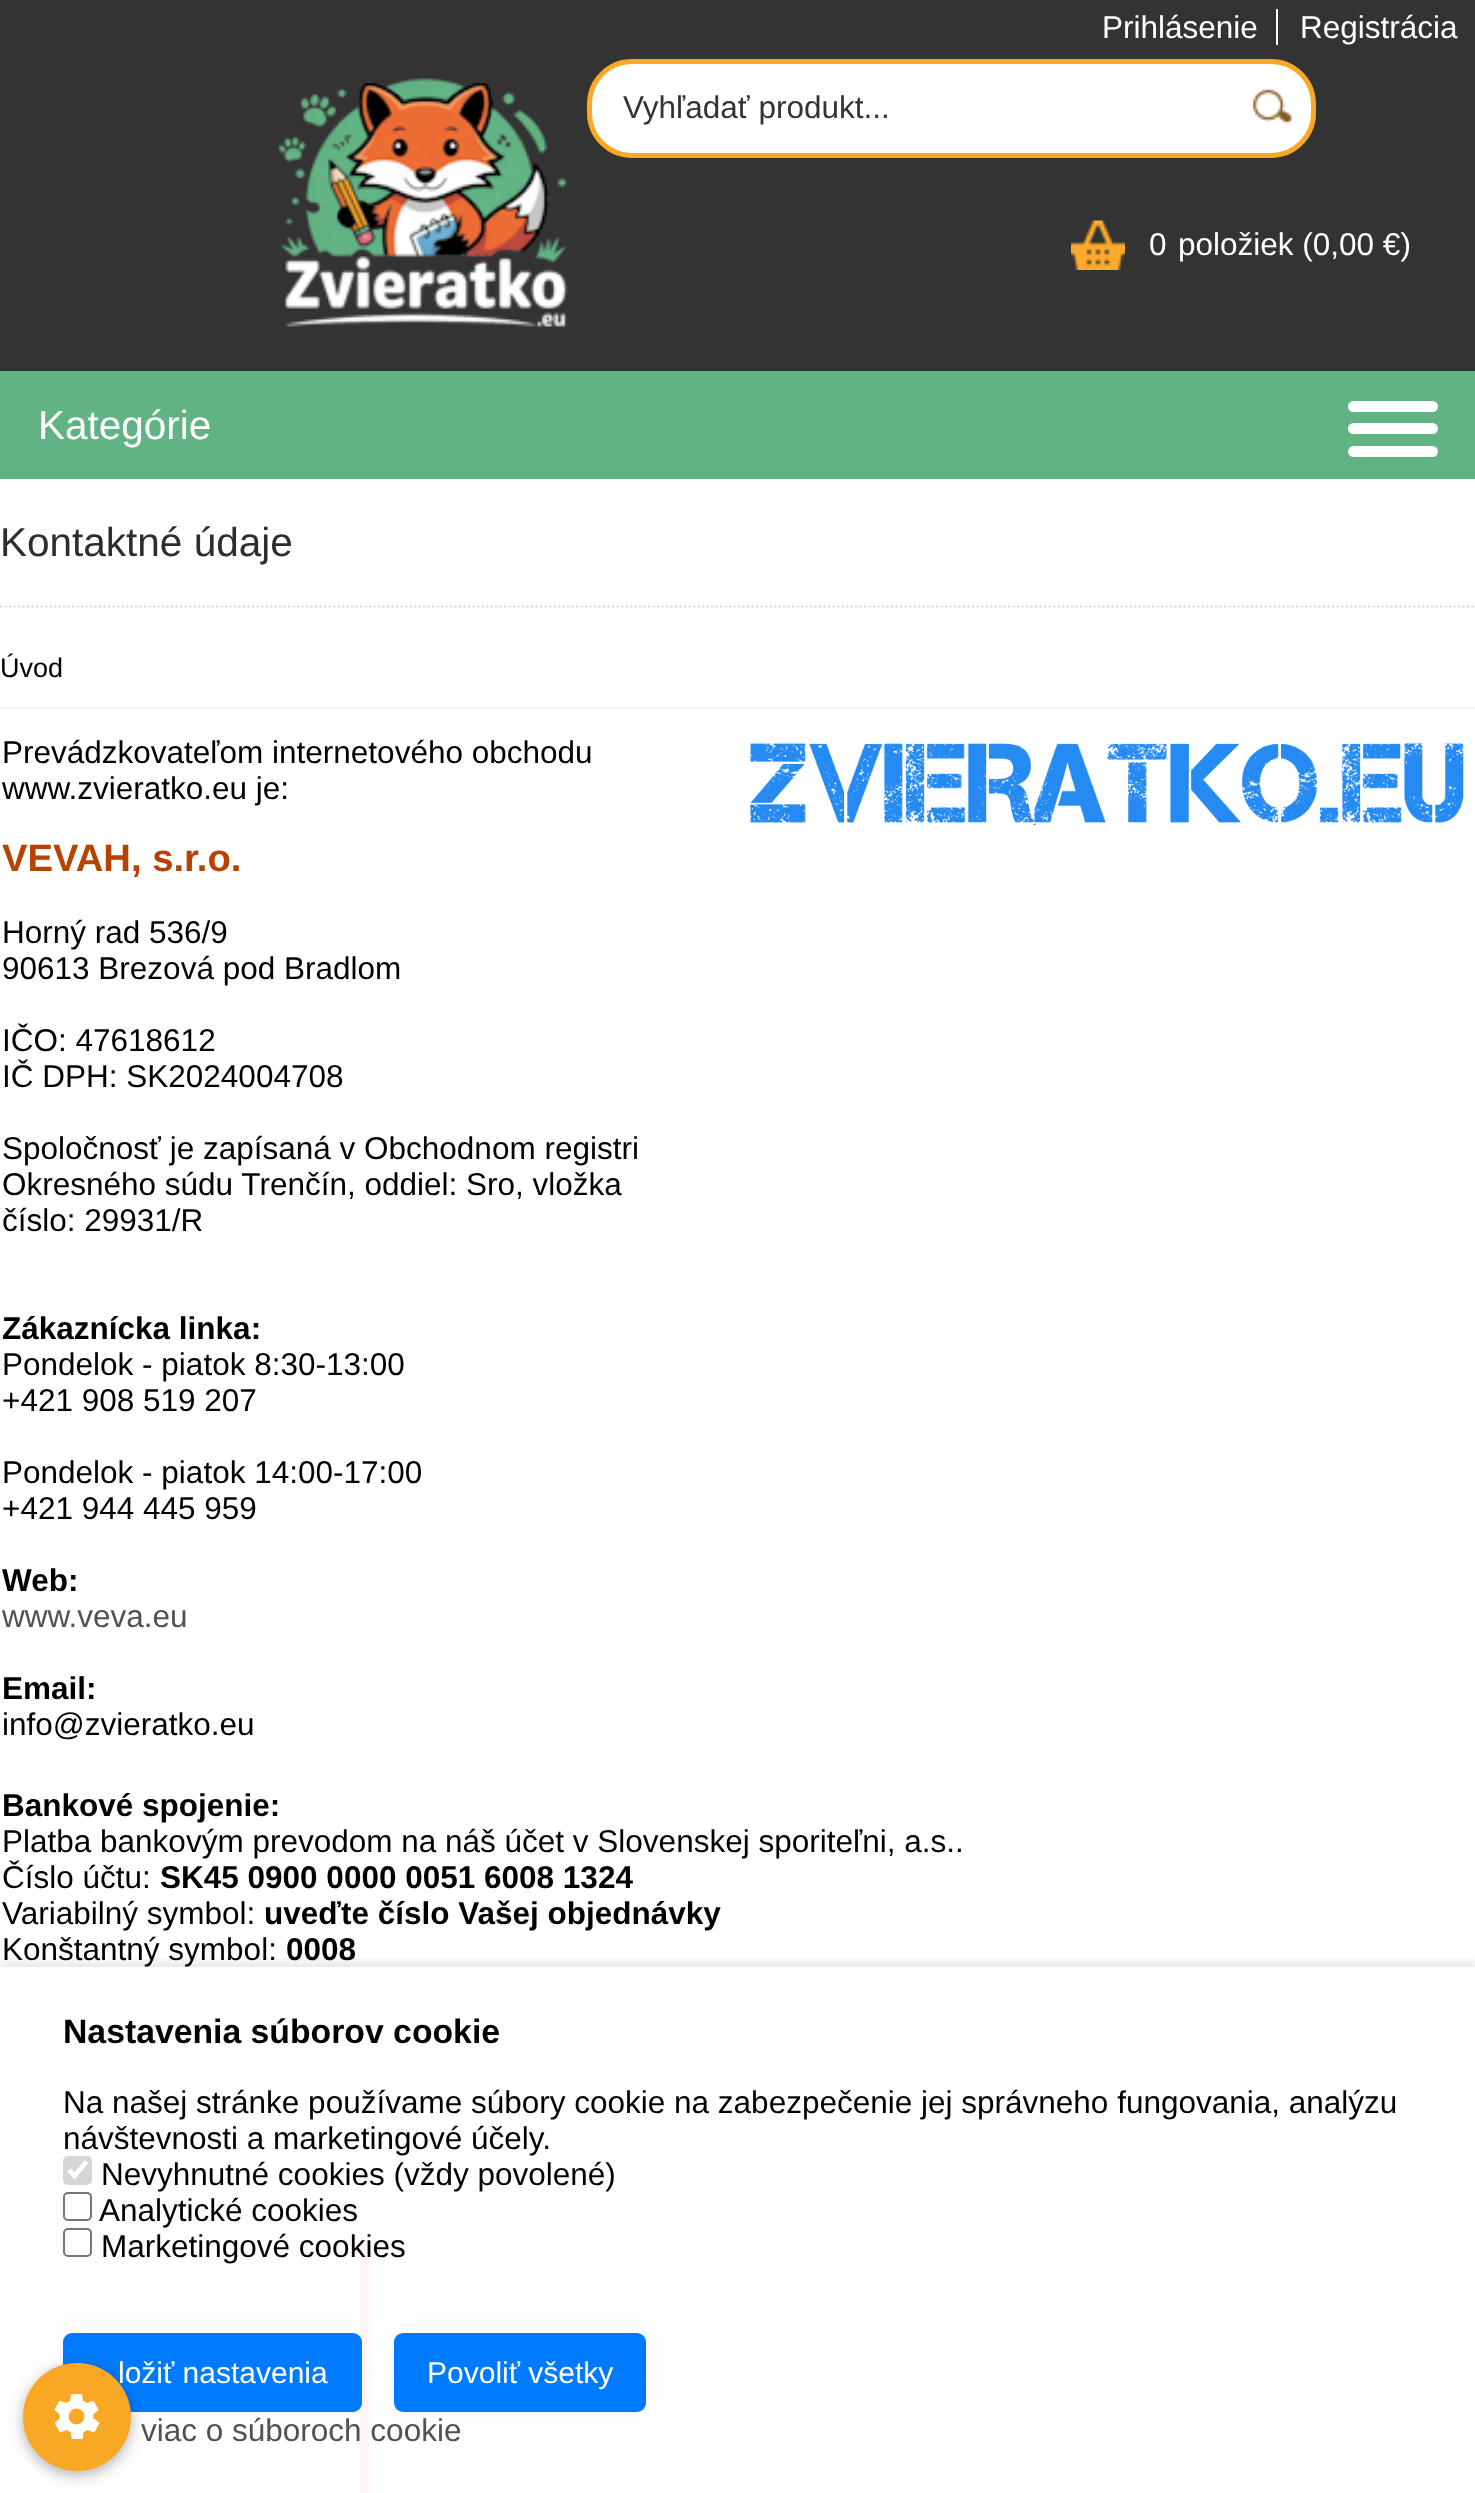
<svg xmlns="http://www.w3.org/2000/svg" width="1475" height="2493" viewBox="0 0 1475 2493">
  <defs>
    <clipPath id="clip1"><rect x="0" y="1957" width="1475" height="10"/></clipPath>
  </defs>
  <rect width="100%" height="100%" fill="rgb(51,51,51)"/>
  <text x="1102" y="38" font-family="Liberation Sans" font-size="31.5" fill="rgb(255,255,255)">Prihlásenie</text>
  <rect x="1276" y="9" width="2" height="36" fill="rgb(255,255,255)"/>
  <text x="1300" y="38" font-family="Liberation Sans" font-size="31.5" fill="rgb(255,255,255)">Registrácia</text>
  <image x="278" y="78" width="290" height="250" href="pic1.png"/>
  <rect x="589.5" y="61.5" width="724" height="94" rx="42.5" fill="rgb(255,255,255)" stroke="rgb(249,168,37)" stroke-width="5"/>
  <text x="623" y="118" font-family="Liberation Sans" font-size="31.5" fill="rgb(51,51,51)">Vyhľadať produkt...</text>
  <image x="1252" y="89" width="41" height="36" href="pic2.png"/>
  <image x="1071" y="220" width="54" height="50" href="pic3.png"/>
  <g font-family="Liberation Sans" font-size="31.5" fill="rgb(255,255,255)">
    <text x="1149" y="255">0</text>
    <text x="1178" y="255">položiek (0,00 €)</text>
  </g>
  <rect x="0" y="371" width="1475" height="108" fill="rgb(97,179,131)"/>
  <text x="38" y="439" font-family="Liberation Sans" font-size="40.5" fill="rgb(255,255,255)">Kategórie</text>
  <rect x="1348" y="401" width="90" height="11" rx="5.5" fill="rgb(255,255,255)"/>
  <rect x="1348" y="423" width="90" height="11" rx="5.5" fill="rgb(255,255,255)"/>
  <rect x="1348" y="446" width="90" height="11" rx="5.5" fill="rgb(255,255,255)"/>
  <rect x="0" y="479" width="1475" height="2014" fill="rgb(255,255,255)"/>
  <path d="M0 606.5H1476" fill="none" stroke="rgb(216,216,216)" stroke-width="2.2" stroke-dasharray="2.25 2.25"/>
  <text x="0" y="556" font-family="Liberation Sans" font-size="40.5" fill="rgb(45,45,45)">Kontaktné údaje</text>
  <rect x="0" y="707" width="1475" height="2" fill="rgb(242,242,242)"/>
  <text x="0" y="677" font-family="Liberation Sans" font-size="27" fill="rgb(0,0,0)">Úvod</text>
  <g font-family="Liberation Sans" font-size="31.5" fill="rgb(0,0,0)">
    <text>
      <tspan x="2" y="763">Prevádzkovateľom internetového obchodu</tspan>
      <tspan x="2" y="799">www.zvieratko.eu je:</tspan>
    </text>
  </g>
  <text x="2" y="871" font-family="Liberation Sans" font-size="38.25" font-weight="bold" fill="rgb(183,67,0)">VEVAH, s.r.o.</text>
  <g font-family="Liberation Sans" font-size="31.5" fill="rgb(0,0,0)">
    <text>
      <tspan x="2" y="943">Horný rad 536/9</tspan>
      <tspan x="2" y="979">90613 Brezová pod Bradlom</tspan>
    </text>
    <text>
      <tspan x="2" y="1051">IČO: 47618612</tspan>
      <tspan x="2" y="1087">IČ DPH: SK2024004708</tspan>
    </text>
    <text>
      <tspan x="2" y="1159">Spoločnosť je zapísaná v Obchodnom registri</tspan>
      <tspan x="2" y="1195">Okresného súdu Trenčín, oddiel: Sro, vložka</tspan>
      <tspan x="2" y="1231">číslo: 29931/R</tspan>
    </text>
  </g>
  <text x="2" y="1339" font-family="Liberation Sans" font-size="31.5" font-weight="bold" fill="rgb(0,0,0)">Zákaznícka linka:</text>
  <g font-family="Liberation Sans" font-size="31.5" fill="rgb(0,0,0)">
    <text>
      <tspan x="2" y="1375">Pondelok - piatok 8:30-13:00</tspan>
      <tspan x="2" y="1411">+421 908 519 207</tspan>
    </text>
    <text>
      <tspan x="2" y="1483">Pondelok - piatok 14:00-17:00</tspan>
      <tspan x="2" y="1519">+421 944 445 959</tspan>
    </text>
  </g>
  <text x="2" y="1591" font-family="Liberation Sans" font-size="31.5" font-weight="bold" fill="rgb(0,0,0)">Web:</text>
  <text x="2" y="1627" font-family="Liberation Sans" font-size="31.5" fill="rgb(81,81,81)">www.veva.eu</text>
  <text x="2" y="1699" font-family="Liberation Sans" font-size="31.5" font-weight="bold" fill="rgb(0,0,0)">Email:</text>
  <text x="2" y="1735" font-family="Liberation Sans" font-size="31.5" fill="rgb(0,0,0)">info@zvieratko.eu</text>
  <image x="750" y="743" width="714" height="82" href="pic4.png"/>
  <text x="2" y="1816" font-family="Liberation Sans" font-size="31.5" font-weight="bold" fill="rgb(0,0,0)">Bankové spojenie:</text>
  <g font-family="Liberation Sans" font-size="31.5" fill="rgb(0,0,0)">
    <text>
      <tspan x="2" y="1852">Platba bankovým prevodom na náš účet v Slovenskej sporiteľni, a.s..</tspan>
      <tspan x="2" y="1888">Číslo účtu:</tspan>
    </text>
  </g>
  <text x="160" y="1888" font-family="Liberation Sans" font-size="31.5" font-weight="bold" fill="rgb(0,0,0)">SK45 0900 0000 0051 6008 1324</text>
  <text x="2" y="1924" font-family="Liberation Sans" font-size="31.5" fill="rgb(0,0,0)">Variabilný symbol:</text>
  <text x="264" y="1924" font-family="Liberation Sans" font-size="31.5" font-weight="bold" fill="rgb(0,0,0)">uveďte číslo Vašej objednávky</text>
  <text x="2" y="1960" font-family="Liberation Sans" font-size="31.5" fill="rgb(0,0,0)">Konštantný symbol:</text>
  <text x="286" y="1960" font-family="Liberation Sans" font-size="31.5" font-weight="bold" fill="rgb(0,0,0)">0008</text>
  <image x="2" y="2202" width="1450" height="291" href="pic6.png"/>
  <image x="2" y="2113" width="345" height="90" href="pic5.png"/>
  <rect x="360" y="2243" width="9" height="250" fill="rgb(255,245,245)"/>
  <image x="373" y="2441" width="694" height="10" href="pic7.png"/>
  <rect x="371" y="2439" width="698" height="2" fill="rgb(251,252,252)"/>
  <rect x="1067" y="2439" width="2" height="2" fill="rgb(254,254,254)"/>
  <rect x="371" y="2439" width="2" height="54" fill="rgb(251,252,252)"/>
  <image x="373" y="2252" width="694" height="10" href="pic7.png"/>
  <rect x="371" y="2250" width="698" height="2" fill="rgb(251,252,252)"/>
  <rect x="1067" y="2250" width="2" height="2" fill="rgb(254,254,254)"/>
  <rect x="371" y="2250" width="2" height="59" fill="rgb(251,252,252)"/>
  <image x="373" y="2315" width="694" height="10" href="pic7.png"/>
  <rect x="371" y="2313" width="698" height="2" fill="rgb(251,252,252)"/>
  <rect x="1067" y="2313" width="2" height="2" fill="rgb(254,254,254)"/>
  <rect x="371" y="2313" width="2" height="59" fill="rgb(251,252,252)"/>
  <image x="373" y="2378" width="694" height="10" href="pic7.png"/>
  <rect x="371" y="2376" width="698" height="2" fill="rgb(251,252,252)"/>
  <rect x="1067" y="2376" width="2" height="2" fill="rgb(254,254,254)"/>
  <rect x="371" y="2376" width="2" height="59" fill="rgb(251,252,252)"/>
  <g clip-path="url(#clip1)">
    <rect x="0" y="1962" width="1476" height="527" fill="rgba(0,0,0,0.1)" filter="blur(5.5px)"/>
  </g>
  <text x="63" y="2043" font-family="Liberation Sans" font-size="33.75" font-weight="bold" fill="rgb(0,0,0)">Nastavenia súborov cookie</text>
  <g font-family="Liberation Sans" font-size="31.5" fill="rgb(0,0,0)">
    <text>
      <tspan x="63" y="2113">Na našej stránke používame súbory cookie na zabezpečenie jej správneho fungovania, analýzu</tspan>
      <tspan x="63" y="2149">návštevnosti a marketingové účely.</tspan>
    </text>
  </g>
  <rect x="63" y="2156" width="29" height="29" rx="5" fill="rgba(118,118,118,0.3)"/>
  <path d="M69 2170L74.5 2176L86.5 2161.5" fill="none" stroke="rgb(255,255,255)" stroke-width="4.7"/>
  <text x="101" y="2185" font-family="Liberation Sans" font-size="31.5" fill="rgb(0,0,0)">Nevyhnutné cookies (vždy povolené)</text>
  <rect x="64" y="2193" width="27" height="27" rx="4" fill="none" stroke="rgb(118,118,118)" stroke-width="2"/>
  <text x="99" y="2221" font-family="Liberation Sans" font-size="31.5" fill="rgb(0,0,0)">Analytické cookies</text>
  <rect x="64" y="2229" width="27" height="27" rx="4" fill="none" stroke="rgb(118,118,118)" stroke-width="2"/>
  <text x="101" y="2257" font-family="Liberation Sans" font-size="31.5" fill="rgb(0,0,0)">Marketingové cookies</text>
  <rect x="63" y="2333" width="299" height="79" rx="9" fill="rgb(0,123,255)"/>
  <text x="118" y="2383" font-family="Liberation Sans" font-size="30" fill="rgb(255,255,255)">ložiť nastavenia</text>
  <rect x="394" y="2333" width="252" height="79" rx="9" fill="rgb(0,123,255)"/>
  <text x="427" y="2383" font-family="Liberation Sans" font-size="30" fill="rgb(255,255,255)">Povoliť všetky</text>
  <text x="141" y="2441" font-family="Liberation Sans" font-size="31.5" fill="rgb(81,81,81)">viac o súboroch cookie</text>
  <rect x="23" y="2367" width="108" height="108" rx="54" fill="rgba(0,0,0,0.3)" filter="blur(7px)"/>
  <circle cx="77" cy="2417" r="54" fill="rgb(249,168,37)"/>
  <image x="54" y="2394" width="46" height="45" href="pic8.png"/>
</svg>
